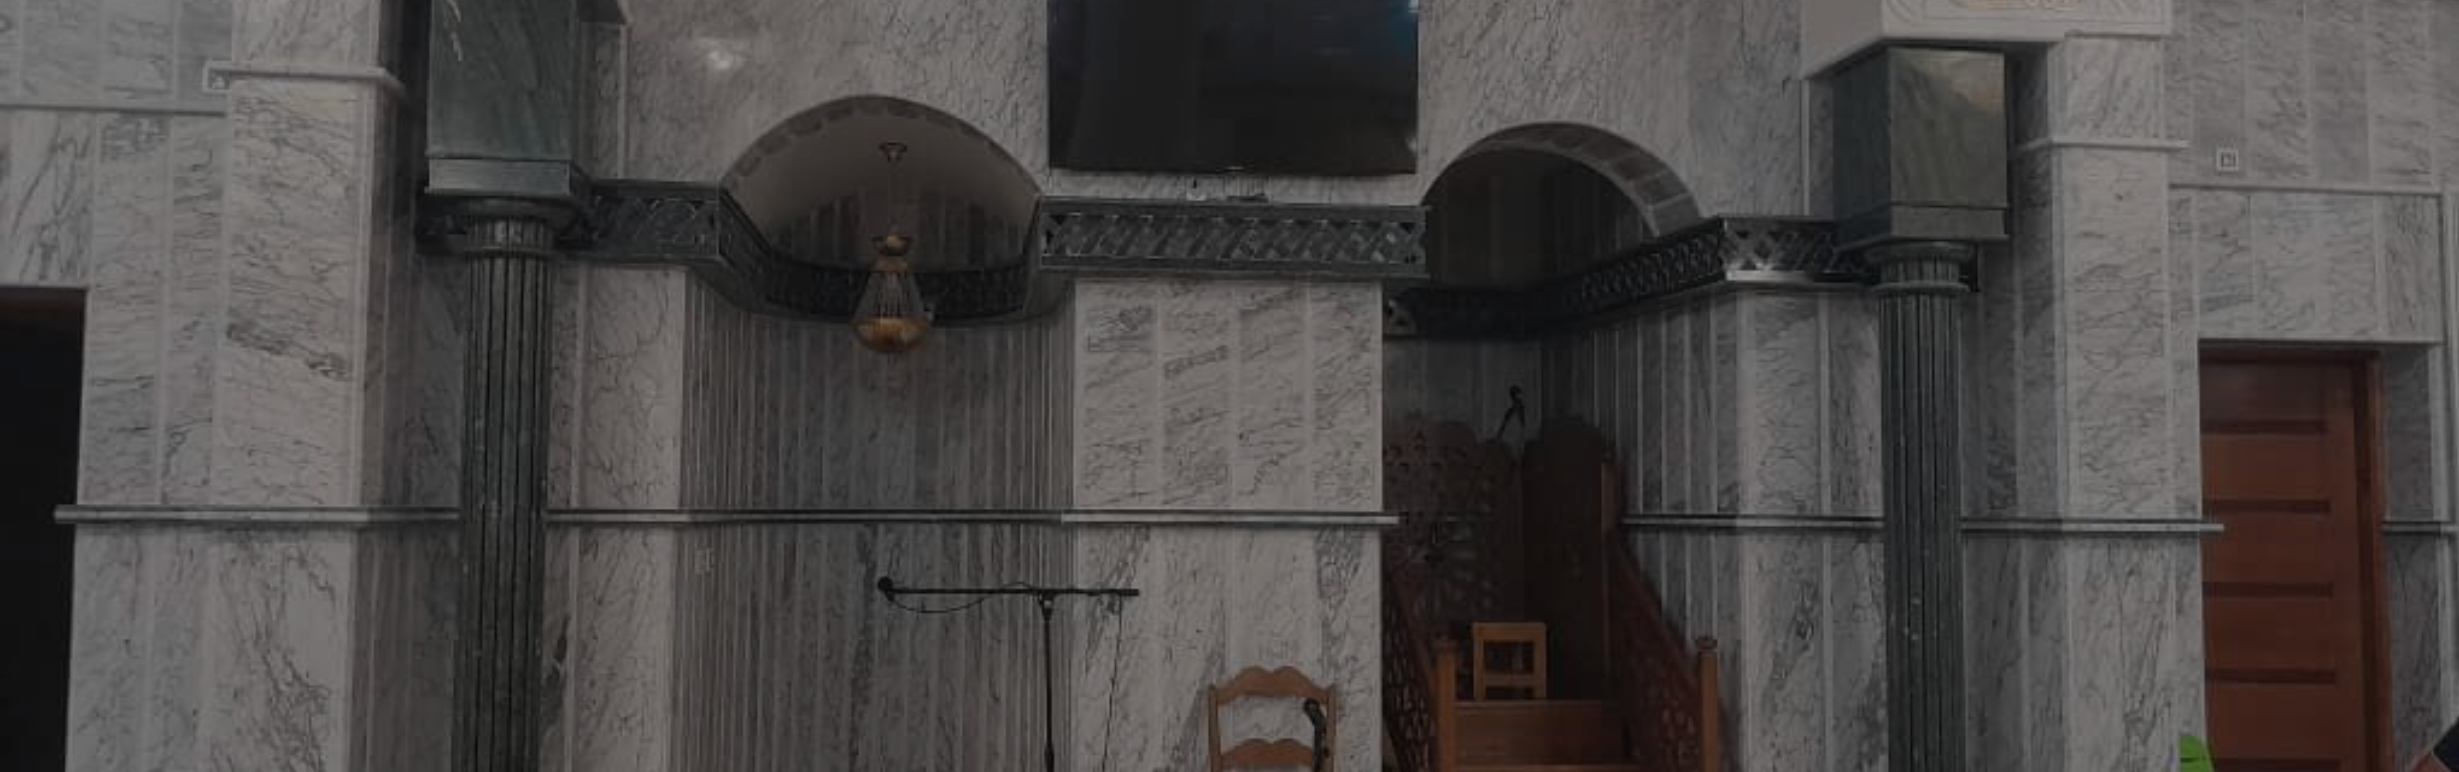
<svg xmlns="http://www.w3.org/2000/svg" width="2459" height="772" viewBox="0 0 2459 772">
  <rect width="100%" height="100%" fill="rgb(255,255,255)"/>
  <image x="0" y="0" width="2459" height="772" href="pic1.png"/>
</svg>
